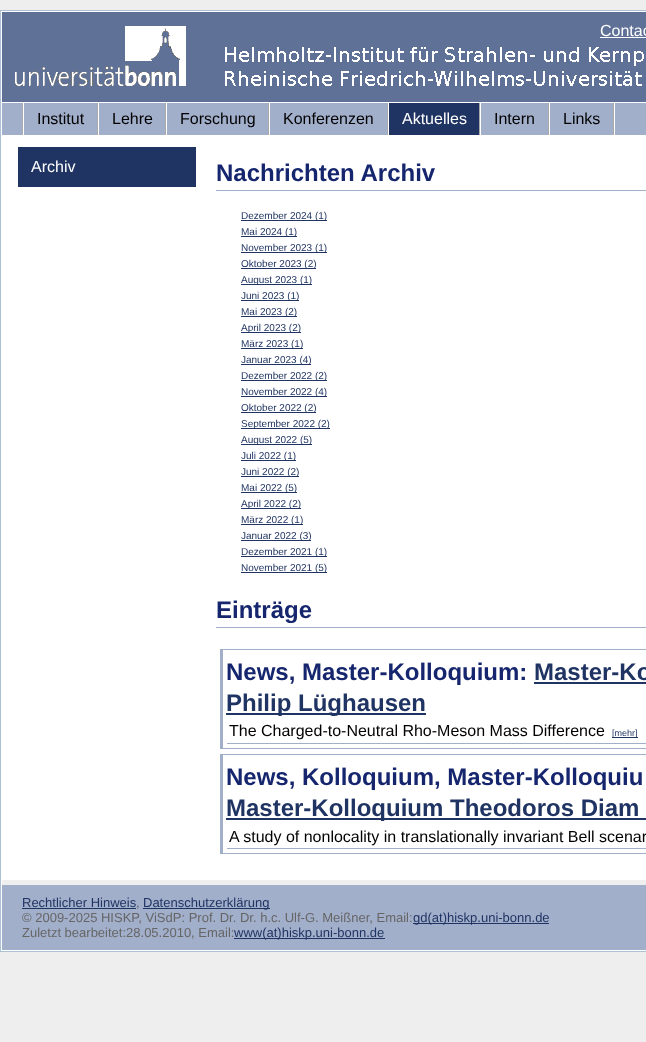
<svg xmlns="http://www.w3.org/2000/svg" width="646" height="1042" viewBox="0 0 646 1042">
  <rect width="100%" height="100%" fill="rgb(238,238,238)"/>
  <rect x="0.5" y="10.5" width="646" height="941" fill="rgb(255,255,255)" stroke="rgb(173,193,214)"/>
  <rect x="2" y="12" width="644" height="90" fill="rgb(96,113,152)"/>
  <image x="225" y="47" width="419" height="39" href="pic1.png"/>
  <image x="15" y="26" width="171" height="60" href="pic2.png"/>
  <text x="600" y="36" font-family="Liberation Sans" font-size="16" fill="rgb(255,255,255)">Contac</text>
  <rect x="600" y="37" width="46" height="1" fill="rgb(255,255,255)"/>
  <rect x="2" y="103" width="644" height="32" fill="rgb(162,175,203)"/>
  <rect x="614" y="103" width="1" height="32" fill="rgb(255,255,255)"/>
  <rect x="22" y="103" width="1" height="32" fill="rgb(170,170,170)"/>
  <rect x="97" y="103" width="1" height="32" fill="rgb(170,170,170)"/>
  <rect x="23" y="103" width="1" height="32" fill="rgb(255,255,255)"/>
  <text x="37" y="124" font-family="Liberation Sans" font-size="16" fill="rgb(0,0,0)">Institut</text>
  <rect x="165" y="103" width="1" height="32" fill="rgb(170,170,170)"/>
  <rect x="98" y="103" width="1" height="32" fill="rgb(255,255,255)"/>
  <text x="112" y="124" font-family="Liberation Sans" font-size="16" fill="rgb(0,0,0)">Lehre</text>
  <rect x="268" y="103" width="1" height="32" fill="rgb(170,170,170)"/>
  <rect x="166" y="103" width="1" height="32" fill="rgb(255,255,255)"/>
  <text x="180" y="124" font-family="Liberation Sans" font-size="16" fill="rgb(0,0,0)">Forschung</text>
  <rect x="387" y="103" width="1" height="32" fill="rgb(170,170,170)"/>
  <rect x="269" y="103" width="1" height="32" fill="rgb(255,255,255)"/>
  <text x="283" y="124" font-family="Liberation Sans" font-size="16" fill="rgb(0,0,0)">Konferenzen</text>
  <rect x="389" y="103" width="90" height="32" fill="rgb(32,52,99)"/>
  <rect x="479" y="103" width="1" height="32" fill="rgb(170,170,170)"/>
  <rect x="388" y="103" width="1" height="32" fill="rgb(255,255,255)"/>
  <text x="402" y="124" font-family="Liberation Sans" font-size="16" fill="rgb(255,255,255)">Aktuelles</text>
  <rect x="548" y="103" width="1" height="32" fill="rgb(170,170,170)"/>
  <rect x="480" y="103" width="1" height="32" fill="rgb(255,255,255)"/>
  <text x="494" y="124" font-family="Liberation Sans" font-size="16" fill="rgb(0,0,0)">Intern</text>
  <rect x="613" y="103" width="1" height="32" fill="rgb(170,170,170)"/>
  <rect x="549" y="103" width="1" height="32" fill="rgb(255,255,255)"/>
  <text x="563" y="124" font-family="Liberation Sans" font-size="16" fill="rgb(0,0,0)">Links</text>
  <rect x="18" y="147" width="178" height="40" fill="rgb(32,52,99)"/>
  <text x="31" y="172" font-family="Liberation Sans" font-size="16" fill="rgb(255,255,255)">Archiv</text>
  <rect x="216" y="190" width="430" height="1" fill="rgb(162,175,203)"/>
  <text x="216" y="181" font-family="Liberation Sans" font-size="24" font-weight="bold" fill="rgb(22,38,110)">Nachrichten Archiv</text>
  <rect x="241" y="220" width="86" height="1" fill="rgb(32,52,99)"/>
  <text x="241" y="219" font-family="Liberation Sans" font-size="10" fill="rgb(32,52,99)">Dezember 2024 (1)</text>
  <rect x="241" y="236" width="56" height="1" fill="rgb(32,52,99)"/>
  <text x="241" y="235" font-family="Liberation Sans" font-size="10" fill="rgb(32,52,99)">Mai 2024 (1)</text>
  <rect x="241" y="252" width="86" height="1" fill="rgb(32,52,99)"/>
  <text x="241" y="251" font-family="Liberation Sans" font-size="10" fill="rgb(32,52,99)">November 2023 (1)</text>
  <rect x="241" y="268" width="75" height="1" fill="rgb(32,52,99)"/>
  <text x="241" y="267" font-family="Liberation Sans" font-size="10" fill="rgb(32,52,99)">Oktober 2023 (2)</text>
  <rect x="241" y="284" width="71" height="1" fill="rgb(32,52,99)"/>
  <text x="241" y="283" font-family="Liberation Sans" font-size="10" fill="rgb(32,52,99)">August 2023 (1)</text>
  <rect x="241" y="300" width="58" height="1" fill="rgb(32,52,99)"/>
  <text x="241" y="299" font-family="Liberation Sans" font-size="10" fill="rgb(32,52,99)">Juni 2023 (1)</text>
  <rect x="241" y="316" width="56" height="1" fill="rgb(32,52,99)"/>
  <text x="241" y="315" font-family="Liberation Sans" font-size="10" fill="rgb(32,52,99)">Mai 2023 (2)</text>
  <rect x="241" y="332" width="60" height="1" fill="rgb(32,52,99)"/>
  <text x="241" y="331" font-family="Liberation Sans" font-size="10" fill="rgb(32,52,99)">April 2023 (2)</text>
  <rect x="241" y="348" width="62" height="1" fill="rgb(32,52,99)"/>
  <text x="241" y="347" font-family="Liberation Sans" font-size="10" fill="rgb(32,52,99)">März 2023 (1)</text>
  <rect x="241" y="364" width="70" height="1" fill="rgb(32,52,99)"/>
  <text x="241" y="363" font-family="Liberation Sans" font-size="10" fill="rgb(32,52,99)">Januar 2023 (4)</text>
  <rect x="241" y="380" width="86" height="1" fill="rgb(32,52,99)"/>
  <text x="241" y="379" font-family="Liberation Sans" font-size="10" fill="rgb(32,52,99)">Dezember 2022 (2)</text>
  <rect x="241" y="396" width="86" height="1" fill="rgb(32,52,99)"/>
  <text x="241" y="395" font-family="Liberation Sans" font-size="10" fill="rgb(32,52,99)">November 2022 (4)</text>
  <rect x="241" y="412" width="75" height="1" fill="rgb(32,52,99)"/>
  <text x="241" y="411" font-family="Liberation Sans" font-size="10" fill="rgb(32,52,99)">Oktober 2022 (2)</text>
  <rect x="241" y="428" width="89" height="1" fill="rgb(32,52,99)"/>
  <text x="241" y="427" font-family="Liberation Sans" font-size="10" fill="rgb(32,52,99)">September 2022 (2)</text>
  <rect x="241" y="444" width="71" height="1" fill="rgb(32,52,99)"/>
  <text x="241" y="443" font-family="Liberation Sans" font-size="10" fill="rgb(32,52,99)">August 2022 (5)</text>
  <rect x="241" y="460" width="55" height="1" fill="rgb(32,52,99)"/>
  <text x="241" y="459" font-family="Liberation Sans" font-size="10" fill="rgb(32,52,99)">Juli 2022 (1)</text>
  <rect x="241" y="476" width="58" height="1" fill="rgb(32,52,99)"/>
  <text x="241" y="475" font-family="Liberation Sans" font-size="10" fill="rgb(32,52,99)">Juni 2022 (2)</text>
  <rect x="241" y="492" width="56" height="1" fill="rgb(32,52,99)"/>
  <text x="241" y="491" font-family="Liberation Sans" font-size="10" fill="rgb(32,52,99)">Mai 2022 (5)</text>
  <rect x="241" y="508" width="60" height="1" fill="rgb(32,52,99)"/>
  <text x="241" y="507" font-family="Liberation Sans" font-size="10" fill="rgb(32,52,99)">April 2022 (2)</text>
  <rect x="241" y="524" width="62" height="1" fill="rgb(32,52,99)"/>
  <text x="241" y="523" font-family="Liberation Sans" font-size="10" fill="rgb(32,52,99)">März 2022 (1)</text>
  <rect x="241" y="540" width="70" height="1" fill="rgb(32,52,99)"/>
  <text x="241" y="539" font-family="Liberation Sans" font-size="10" fill="rgb(32,52,99)">Januar 2022 (3)</text>
  <rect x="241" y="556" width="86" height="1" fill="rgb(32,52,99)"/>
  <text x="241" y="555" font-family="Liberation Sans" font-size="10" fill="rgb(32,52,99)">Dezember 2021 (1)</text>
  <rect x="241" y="572" width="86" height="1" fill="rgb(32,52,99)"/>
  <text x="241" y="571" font-family="Liberation Sans" font-size="10" fill="rgb(32,52,99)">November 2021 (5)</text>
  <rect x="216" y="627" width="430" height="1" fill="rgb(162,175,203)"/>
  <text x="216" y="618" font-family="Liberation Sans" font-size="24" font-weight="bold" fill="rgb(22,38,110)">Einträge</text>
  <rect x="220" y="649" width="426" height="1" fill="rgb(162,175,203)"/>
  <rect x="220" y="748" width="426" height="1" fill="rgb(162,175,203)"/>
  <rect x="220" y="649" width="3" height="100" fill="rgb(162,175,203)"/>
  <text x="226" y="680" font-family="Liberation Sans" font-size="24" font-weight="bold" fill="rgb(22,38,110)">News, Master-Kolloquium:</text>
  <text x="534" y="680" font-family="Liberation Sans" font-size="24" font-weight="bold" fill="rgb(32,52,99)">Master-Ko</text>
  <rect x="534" y="682" width="112" height="2" fill="rgb(32,52,99)"/>
  <rect x="226" y="713" width="200" height="2" fill="rgb(32,52,99)"/>
  <text x="226" y="711" font-family="Liberation Sans" font-size="24" font-weight="bold" fill="rgb(32,52,99)">Philip Lüghausen</text>
  <text x="229" y="736" font-family="Liberation Sans" font-size="16" fill="rgb(0,0,0)">The Charged-to-Neutral Rho-Meson Mass Difference</text>
  <rect x="612" y="737" width="26" height="1" fill="rgb(32,52,99)"/>
  <text x="612" y="736" font-family="Liberation Sans" font-size="9" fill="rgb(32,52,99)">[mehr]</text>
  <rect x="226.5" y="742.5" width="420" height="2" fill="rgb(162,175,203)" stroke="rgb(255,255,255)"/>
  <rect x="220" y="754" width="426" height="1" fill="rgb(162,175,203)"/>
  <rect x="220" y="853" width="426" height="1" fill="rgb(162,175,203)"/>
  <rect x="220" y="754" width="3" height="100" fill="rgb(162,175,203)"/>
  <text x="226" y="785" font-family="Liberation Sans" font-size="24" font-weight="bold" fill="rgb(22,38,110)">News, Kolloquium, Master-Kolloquiu</text>
  <rect x="226" y="818" width="420" height="2" fill="rgb(32,52,99)"/>
  <text x="226" y="816" font-family="Liberation Sans" font-size="24" font-weight="bold" fill="rgb(32,52,99)">Master-Kolloquium Theodoros Diam</text>
  <text x="229" y="842" font-family="Liberation Sans" font-size="16" fill="rgb(0,0,0)">A study of nonlocality in translationally invariant Bell scenar</text>
  <rect x="226.5" y="847.5" width="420" height="2" fill="rgb(162,175,203)" stroke="rgb(255,255,255)"/>
  <rect x="2" y="885" width="644" height="65" fill="rgb(162,175,203)"/>
  <rect x="2" y="880" width="644" height="5" fill="rgb(239,239,239)"/>
  <text x="22" y="907" font-family="Liberation Sans" font-size="13" fill="rgb(32,52,99)">Rechtlicher Hinweis</text>
  <text x="136" y="907" font-family="Liberation Sans" font-size="13" fill="rgb(102,102,102)">,</text>
  <rect x="22" y="908" width="114" height="1" fill="rgb(32,52,99)"/>
  <rect x="143" y="908" width="127" height="1" fill="rgb(32,52,99)"/>
  <text x="143" y="907" font-family="Liberation Sans" font-size="13" fill="rgb(32,52,99)">Datenschutzerklärung</text>
  <text x="22" y="922" font-family="Liberation Sans" font-size="13" fill="rgb(102,102,102)">© 2009-2025 HISKP, ViSdP: Prof. Dr. Dr. h.c. Ulf-G. Meißner, Email:</text>
  <rect x="413" y="923" width="136" height="1" fill="rgb(32,52,99)"/>
  <text x="413" y="922" font-family="Liberation Sans" font-size="13" fill="rgb(32,52,99)">gd(at)hiskp.uni-bonn.de</text>
  <text x="22" y="937" font-family="Liberation Sans" font-size="13" fill="rgb(102,102,102)">Zuletzt bearbeitet:28.05.2010, Email:</text>
  <rect x="234" y="938" width="151" height="1" fill="rgb(32,52,99)"/>
  <text x="234" y="937" font-family="Liberation Sans" font-size="13" fill="rgb(32,52,99)">www(at)hiskp.uni-bonn.de</text>
</svg>
